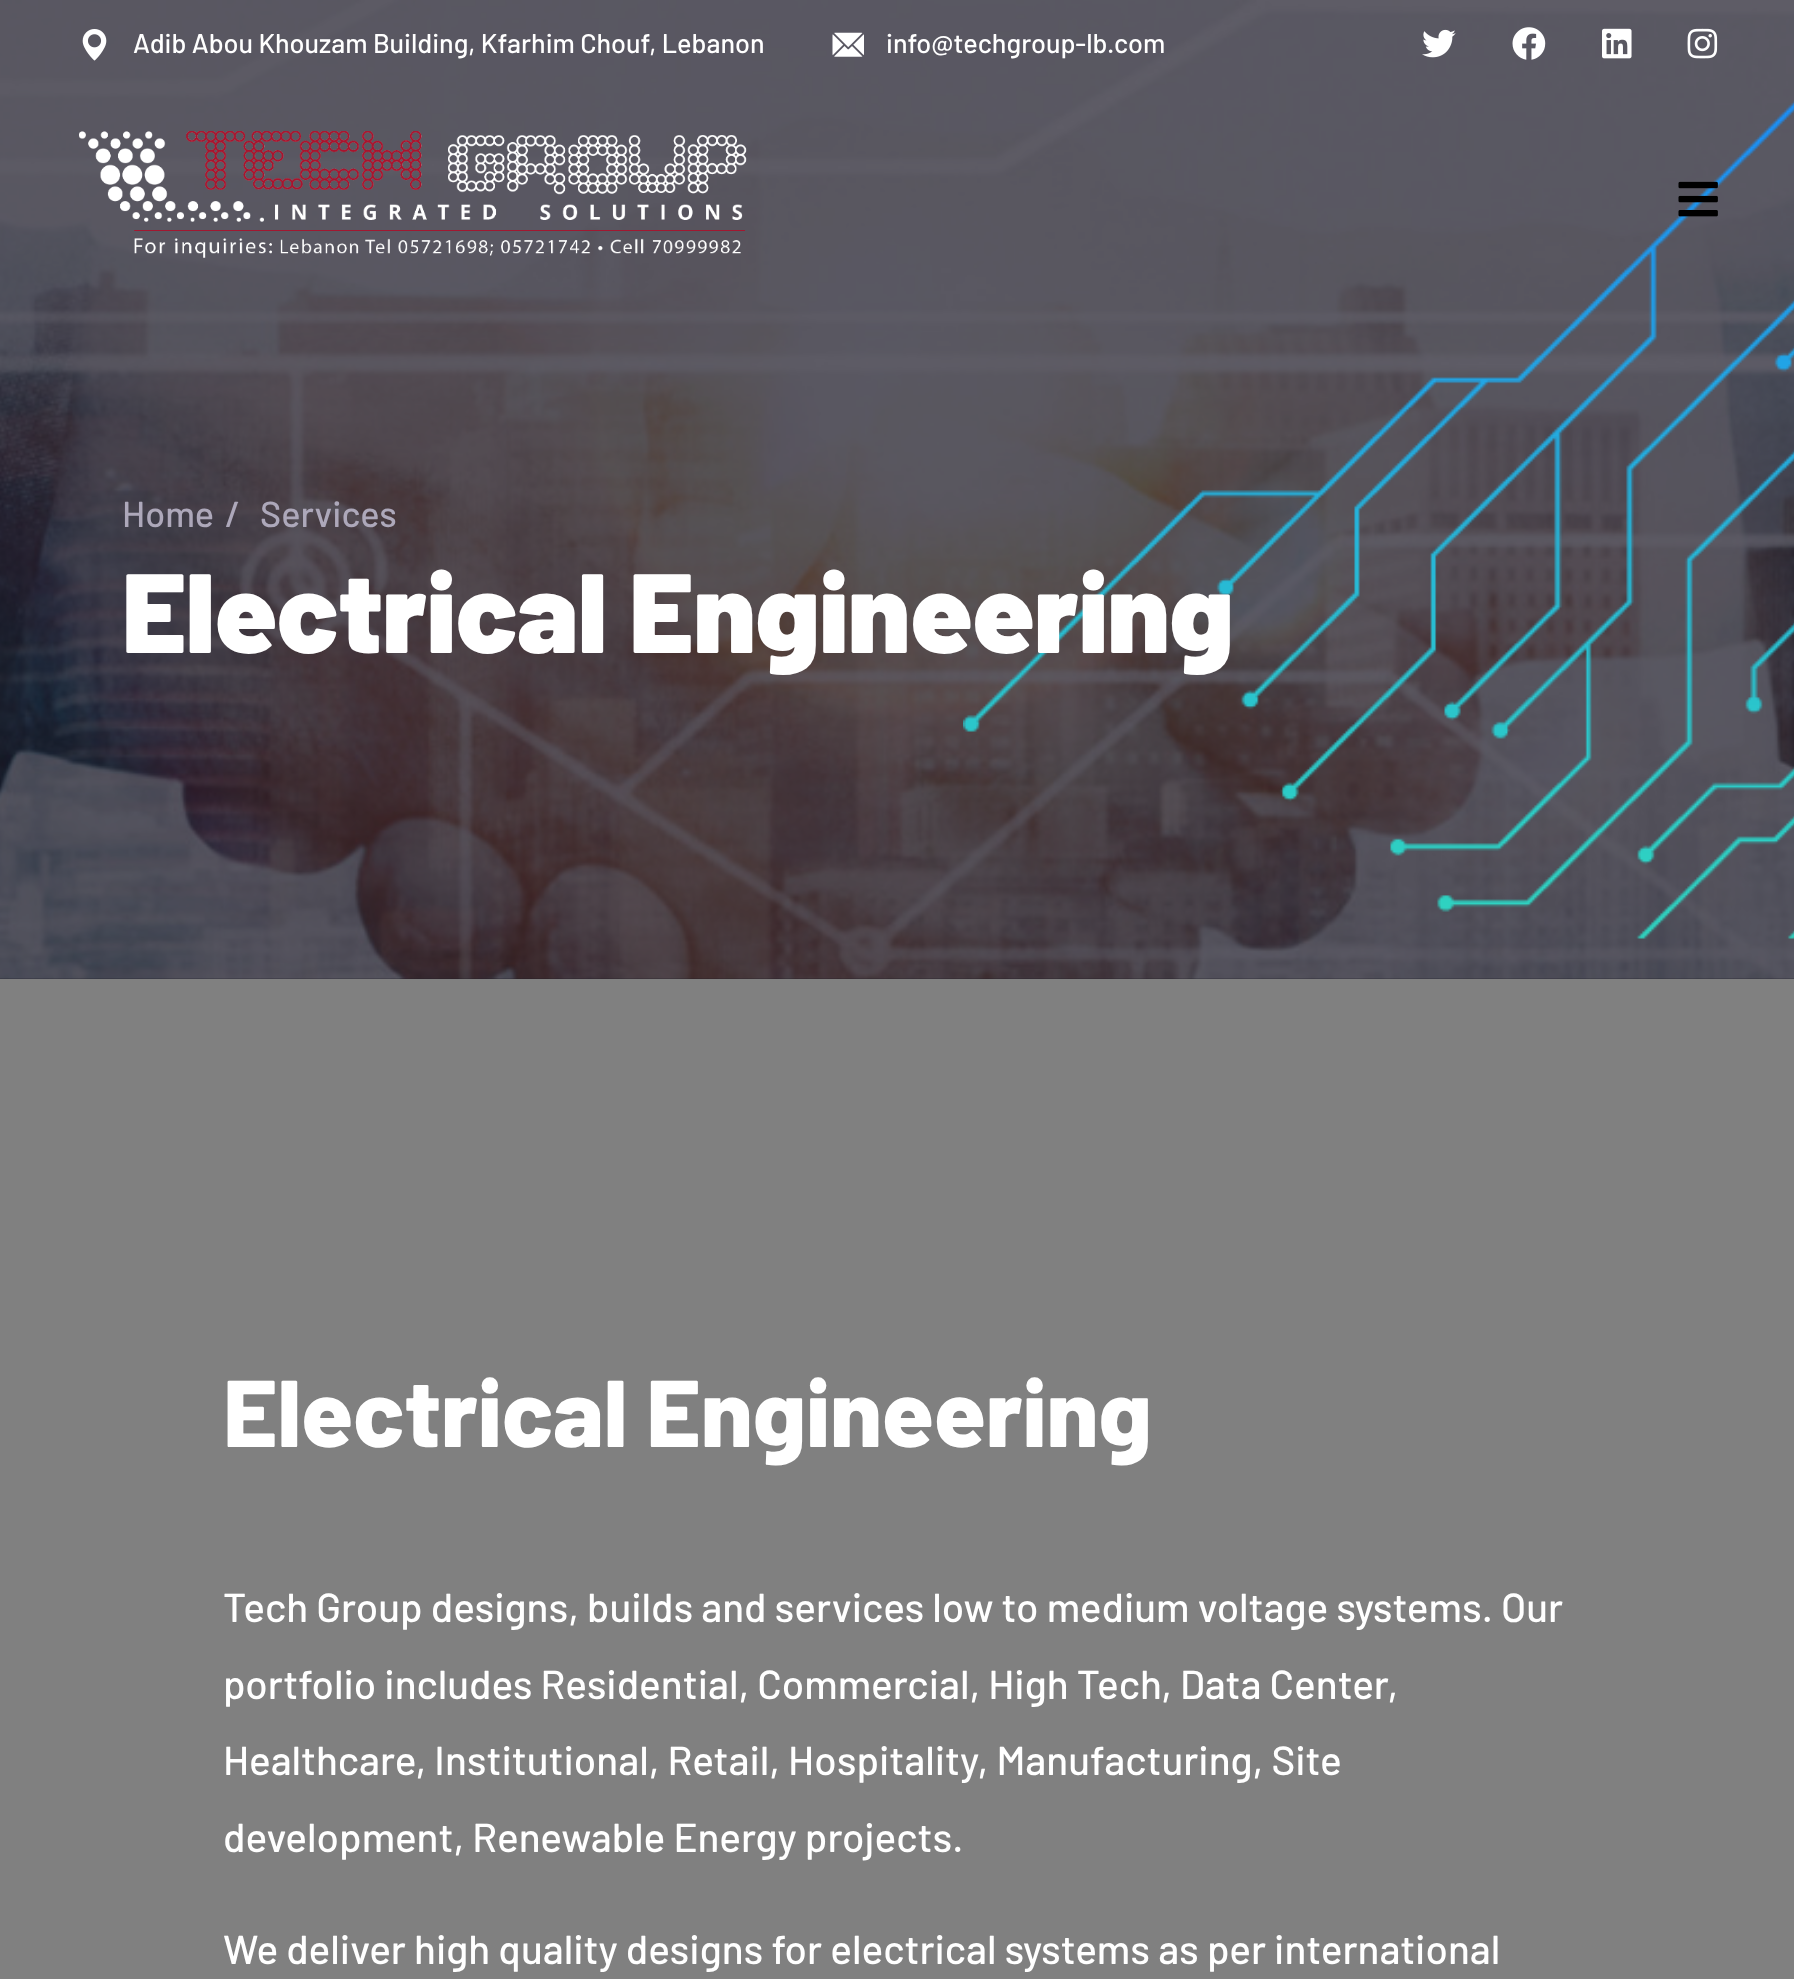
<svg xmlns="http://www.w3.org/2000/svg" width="1794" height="1979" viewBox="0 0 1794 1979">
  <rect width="100%" height="100%" fill="rgb(27,24,37)"/>
  <image x="0" y="0" width="1794" height="979" href="pic9.png"/>
  <image x="82" y="29" width="25" height="32" href="pic1.png"/>
  <text x="133" y="53" font-family="Barlow" font-size="27" font-weight="500" fill="rgb(255,255,255)">Adib Abou Khouzam Building, Kfarhim Chouf, Lebanon</text>
  <image x="832" y="32" width="32" height="25" href="pic2.png"/>
  <text x="886" y="53" font-family="Barlow" font-size="27" font-weight="500" fill="rgb(255,255,255)">info@techgroup-lb.com</text>
  <image x="1422" y="29" width="34" height="29" href="pic3.png"/>
  <image x="1512" y="27" width="34" height="33" href="pic4.png"/>
  <image x="1602" y="28" width="30" height="31" href="pic5.png"/>
  <image x="1687" y="28" width="31" height="31" href="pic6.png"/>
  <image x="79" y="131" width="668" height="127" href="pic7.png"/>
  <image x="963" y="101" width="831" height="838" href="pic10.png"/>
  <image x="1678" y="181" width="40" height="36" href="pic8.png"/>
  <g font-family="Barlow" font-size="36" font-weight="500" fill="rgb(173,168,186)">
    <text x="122" y="527">Home</text>
    <text x="225" y="527">/</text>
    <text x="260" y="527">Services</text>
  </g>
  <text x="122" y="653" font-family="Barlow" font-size="112.5" font-weight="900" fill="rgb(255,255,255)">Electrical Engineering</text>
  <rect x="0" y="979" width="1794" height="1000" fill="rgb(128,128,128)"/>
  <text x="223" y="1447" font-family="Barlow" font-size="94.5" font-weight="800" fill="rgb(255,255,255)">Electrical Engineering</text>
  <g font-family="Barlow" font-size="40.5" font-weight="500" fill="rgb(255,255,255)">
    <text>
      <tspan x="223" y="1622">Tech Group designs, builds and services low to medium voltage systems. Our</tspan>
      <tspan x="223" y="1699">portfolio includes Residential, Commercial, High Tech, Data Center,</tspan>
      <tspan x="223" y="1775">Healthcare, Institutional, Retail, Hospitality, Manufacturing, Site</tspan>
      <tspan x="223" y="1852">development, Renewable Energy projects.</tspan>
    </text>
    <text x="223" y="1964">We deliver high quality designs for electrical systems as per international</text>
  </g>
</svg>
